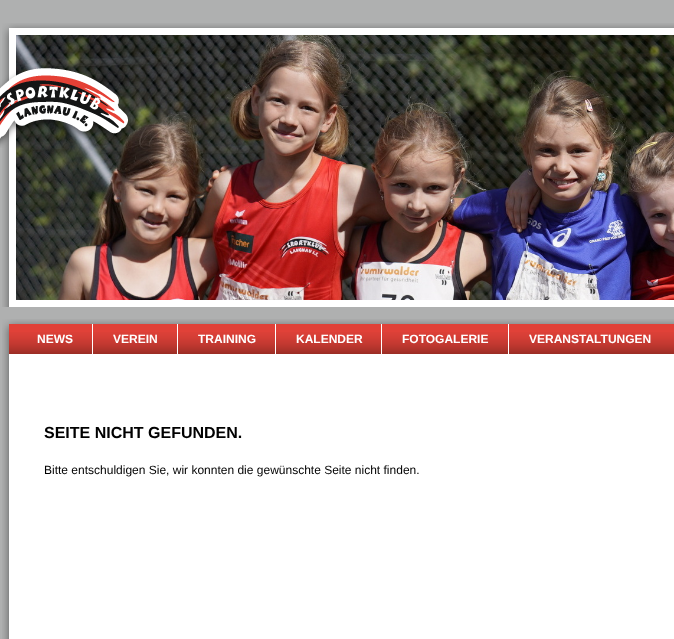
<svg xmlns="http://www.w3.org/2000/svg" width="674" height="639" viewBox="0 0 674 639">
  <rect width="100%" height="100%" fill="rgb(175,176,176)"/>
  <image x="2" y="23" width="672" height="284" href="pic1.png"/>
  <image x="16" y="35" width="658" height="265" href="pic2.png"/>
  <image x="0" y="66" width="131" height="82" href="pic3.png"/>
  <image x="2" y="319" width="672" height="16" href="pic4.png"/>
  <image x="2" y="335" width="672" height="304" href="pic5.png"/>
  <rect x="9" y="324" width="665" height="8" fill="rgb(225,65,56)"/>
  <image x="9" y="332" width="665" height="22" href="pic6.png"/>
  <text x="37" y="343" font-family="Liberation Sans" font-size="12" font-weight="bold" fill="rgb(255,255,255)">NEWS</text>
  <rect x="92" y="324" width="1" height="30" fill="rgb(255,255,255)"/>
  <text x="113" y="343" font-family="Liberation Sans" font-size="12" font-weight="bold" fill="rgb(255,255,255)">VEREIN</text>
  <rect x="177" y="324" width="1" height="30" fill="rgb(255,255,255)"/>
  <text x="198" y="343" font-family="Liberation Sans" font-size="12" font-weight="bold" fill="rgb(255,255,255)">TRAINING</text>
  <rect x="275" y="324" width="1" height="30" fill="rgb(255,255,255)"/>
  <text x="296" y="343" font-family="Liberation Sans" font-size="12" font-weight="bold" fill="rgb(255,255,255)">KALENDER</text>
  <rect x="381" y="324" width="1" height="30" fill="rgb(255,255,255)"/>
  <text x="402" y="343" font-family="Liberation Sans" font-size="12" font-weight="bold" fill="rgb(255,255,255)">FOTOGALERIE</text>
  <rect x="508" y="324" width="1" height="30" fill="rgb(255,255,255)"/>
  <text x="529" y="343" font-family="Liberation Sans" font-size="12" font-weight="bold" fill="rgb(255,255,255)">VERANSTALTUNGEN</text>
  <text x="44" y="438" font-family="Liberation Sans" font-size="16" font-weight="bold" fill="rgb(0,0,0)">SEITE NICHT GEFUNDEN.</text>
  <text x="44" y="474" font-family="Liberation Sans" font-size="12" fill="rgb(0,0,0)">Bitte entschuldigen Sie, wir konnten die gewünschte Seite nicht finden.</text>
</svg>
